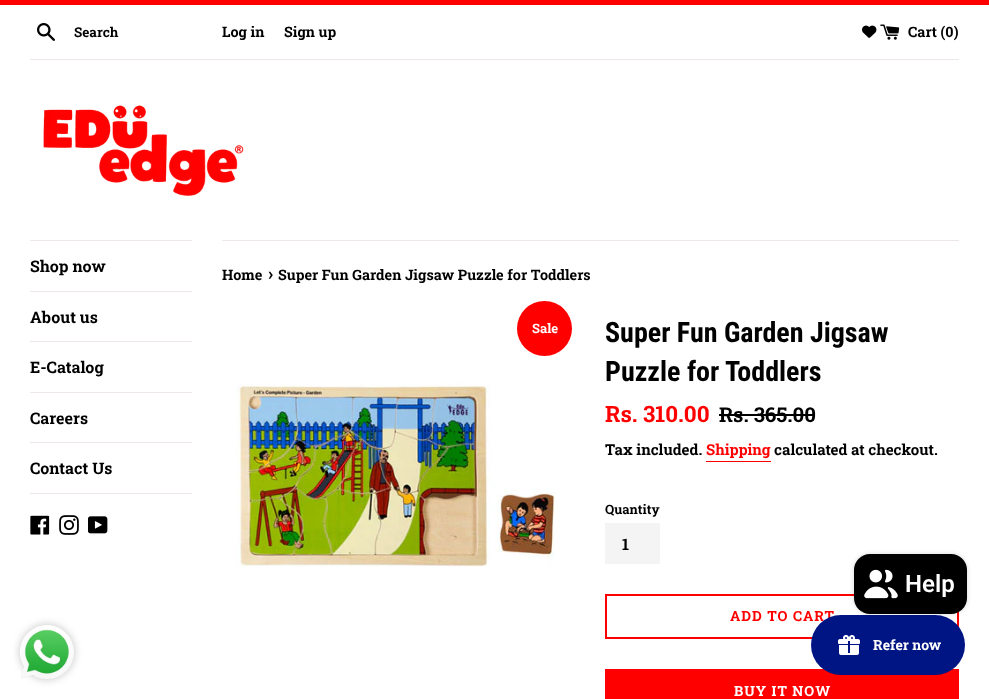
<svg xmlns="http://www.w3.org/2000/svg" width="989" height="699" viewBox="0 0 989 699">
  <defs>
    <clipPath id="clip1"><path d="M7 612H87V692H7ZM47 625C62 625 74 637 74 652C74 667 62 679 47 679C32 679 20 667 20 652C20 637 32 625 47 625Z" clip-rule="evenodd"/></clipPath>
  </defs>
  <rect width="100%" height="100%" fill="rgb(255,255,255)"/>
  <rect x="0" y="0" width="989" height="5" fill="rgb(255,0,0)"/>
  <image x="37" y="23" width="18" height="18" href="pic1.png"/>
  <text x="74" y="37" font-family="Roboto Slab" font-size="13.5" font-weight="bold" fill="rgb(0,0,0)">Search</text>
  <g font-family="Roboto Slab" font-size="14.4" font-weight="bold" fill="rgb(0,0,0)">
    <text x="222" y="37">Log in</text>
    <text x="284" y="37">Sign up</text>
  </g>
  <image x="862" y="25" width="15" height="13" href="pic2.png"/>
  <image x="880" y="24" width="20" height="16" href="pic3.png"/>
  <text x="908" y="37" font-family="Roboto Slab" font-size="14.4" font-weight="bold" fill="rgb(0,0,0)">Cart (0)</text>
  <rect x="30" y="59" width="929" height="1" fill="rgb(237,232,231)"/>
  <image x="43" y="105" width="201" height="91" href="pic4.png"/>
  <rect x="30" y="240" width="162" height="1" fill="rgb(237,232,231)"/>
  <rect x="30" y="291" width="162" height="1" fill="rgb(237,232,231)"/>
  <text x="30" y="272" font-family="Roboto Slab" font-size="16" font-weight="bold" fill="rgb(0,0,0)">Shop now</text>
  <rect x="30" y="341" width="162" height="1" fill="rgb(237,232,231)"/>
  <text x="30" y="323" font-family="Roboto Slab" font-size="16" font-weight="bold" fill="rgb(0,0,0)">About us</text>
  <rect x="30" y="392" width="162" height="1" fill="rgb(237,232,231)"/>
  <text x="30" y="373" font-family="Roboto Slab" font-size="16" font-weight="bold" fill="rgb(0,0,0)">E-Catalog</text>
  <rect x="30" y="442" width="162" height="1" fill="rgb(237,232,231)"/>
  <text x="30" y="424" font-family="Roboto Slab" font-size="16" font-weight="bold" fill="rgb(0,0,0)">Careers</text>
  <rect x="30" y="493" width="162" height="1" fill="rgb(237,232,231)"/>
  <text x="30" y="474" font-family="Roboto Slab" font-size="16" font-weight="bold" fill="rgb(0,0,0)">Contact Us</text>
  <image x="30" y="515" width="20" height="20" href="pic5.png"/>
  <image x="59" y="515" width="20" height="20" href="pic6.png"/>
  <image x="88" y="516" width="20" height="18" href="pic7.png"/>
  <rect x="222" y="240" width="737" height="1" fill="rgb(237,232,231)"/>
  <text x="222" y="280" font-family="Roboto Slab" font-size="14.4" font-weight="bold" fill="rgb(0,0,0)">Home</text>
  <text x="268" y="280" font-family="Roboto Slab" font-size="18" font-weight="bold" fill="rgb(0,0,0)">›</text>
  <text x="278" y="280" font-family="Roboto Slab" font-size="14.4" font-weight="bold" fill="rgb(0,0,0)">Super Fun Garden Jigsaw Puzzle for Toddlers</text>
  <circle cx="544.5" cy="328.5" r="27.5" fill="rgb(255,0,0)"/>
  <text x="532" y="333" font-family="Roboto Slab" font-size="13" font-weight="bold" fill="rgb(255,255,255)">Sale</text>
  <image x="236" y="383" width="319" height="184" href="pic8.png"/>
  <g font-family="Roboto Condensed" font-size="28" font-weight="bold" fill="rgb(0,0,0)">
    <text>
      <tspan x="605" y="342">Super Fun Garden Jigsaw</tspan>
      <tspan x="605" y="381">Puzzle for Toddlers</tspan>
    </text>
  </g>
  <text x="605" y="422" font-family="Roboto Slab" font-size="22.5" font-weight="bold" fill="rgb(255,0,0)">Rs. 310.00</text>
  <text x="719" y="422" font-family="Roboto Slab" font-size="20.5" font-weight="bold" fill="rgb(0,0,0)">Rs. 365.00</text>
  <rect x="719" y="414" width="96" height="2" fill="rgb(0,0,0)"/>
  <text x="605" y="455" font-family="Roboto Slab" font-size="15" font-weight="bold" fill="rgb(0,0,0)">Tax included.</text>
  <text x="706" y="455" font-family="Roboto Slab" font-size="15" font-weight="bold" fill="rgb(255,0,0)">Shipping</text>
  <rect x="706" y="461" width="65" height="1" fill="rgb(255,0,0)"/>
  <text x="774" y="455" font-family="Roboto Slab" font-size="15" font-weight="bold" fill="rgb(0,0,0)">calculated at checkout.</text>
  <text x="605" y="514" font-family="Roboto Slab" font-size="13" font-weight="bold" fill="rgb(0,0,0)">Quantity</text>
  <rect x="605" y="523" width="55" height="41" fill="rgb(244,244,244)"/>
  <text x="622" y="550" font-family="Roboto Slab" font-size="16" font-weight="bold" fill="rgb(0,0,0)">1</text>
  <rect x="606" y="595" width="352" height="43" fill="none" stroke="rgb(255,0,0)" stroke-width="2"/>
  <text x="730" y="621" font-family="Roboto Slab" font-size="14" font-weight="bold" letter-spacing="1" fill="rgb(255,0,0)">ADD TO CART</text>
  <rect x="605" y="669" width="354" height="30" fill="rgb(255,0,0)"/>
  <text x="734" y="696" font-family="Roboto Slab" font-size="14" font-weight="bold" letter-spacing="1" fill="rgb(255,255,255)">BUY IT NOW</text>
  <rect x="811" y="615" width="154" height="60" rx="30" fill="rgb(0,21,132)"/>
  <rect x="854" y="554" width="113" height="60" rx="16" fill="rgba(0,0,0,0.15)" filter="blur(2.5px)"/>
  <rect x="854" y="554" width="113" height="60" rx="16" fill="rgb(0,0,0)"/>
  <image x="864" y="569" width="34" height="30" href="pic9.png"/>
  <text x="905" y="592" font-family="Roboto" font-size="24" font-weight="600" fill="rgb(255,255,255)">Help</text>
  <g clip-path="url(#clip1)">
    <rect x="20" y="625" width="54" height="54" rx="27" fill="rgb(194,194,194)" filter="blur(4px)"/>
  </g>
  <image x="21" y="627" width="53" height="52" href="pic10.png"/>
  <image x="838" y="634" width="22" height="21" href="pic11.png"/>
  <text x="873" y="650" font-family="Roboto Slab" font-size="14" font-weight="bold" fill="rgb(255,255,255)">Refer now</text>
</svg>
